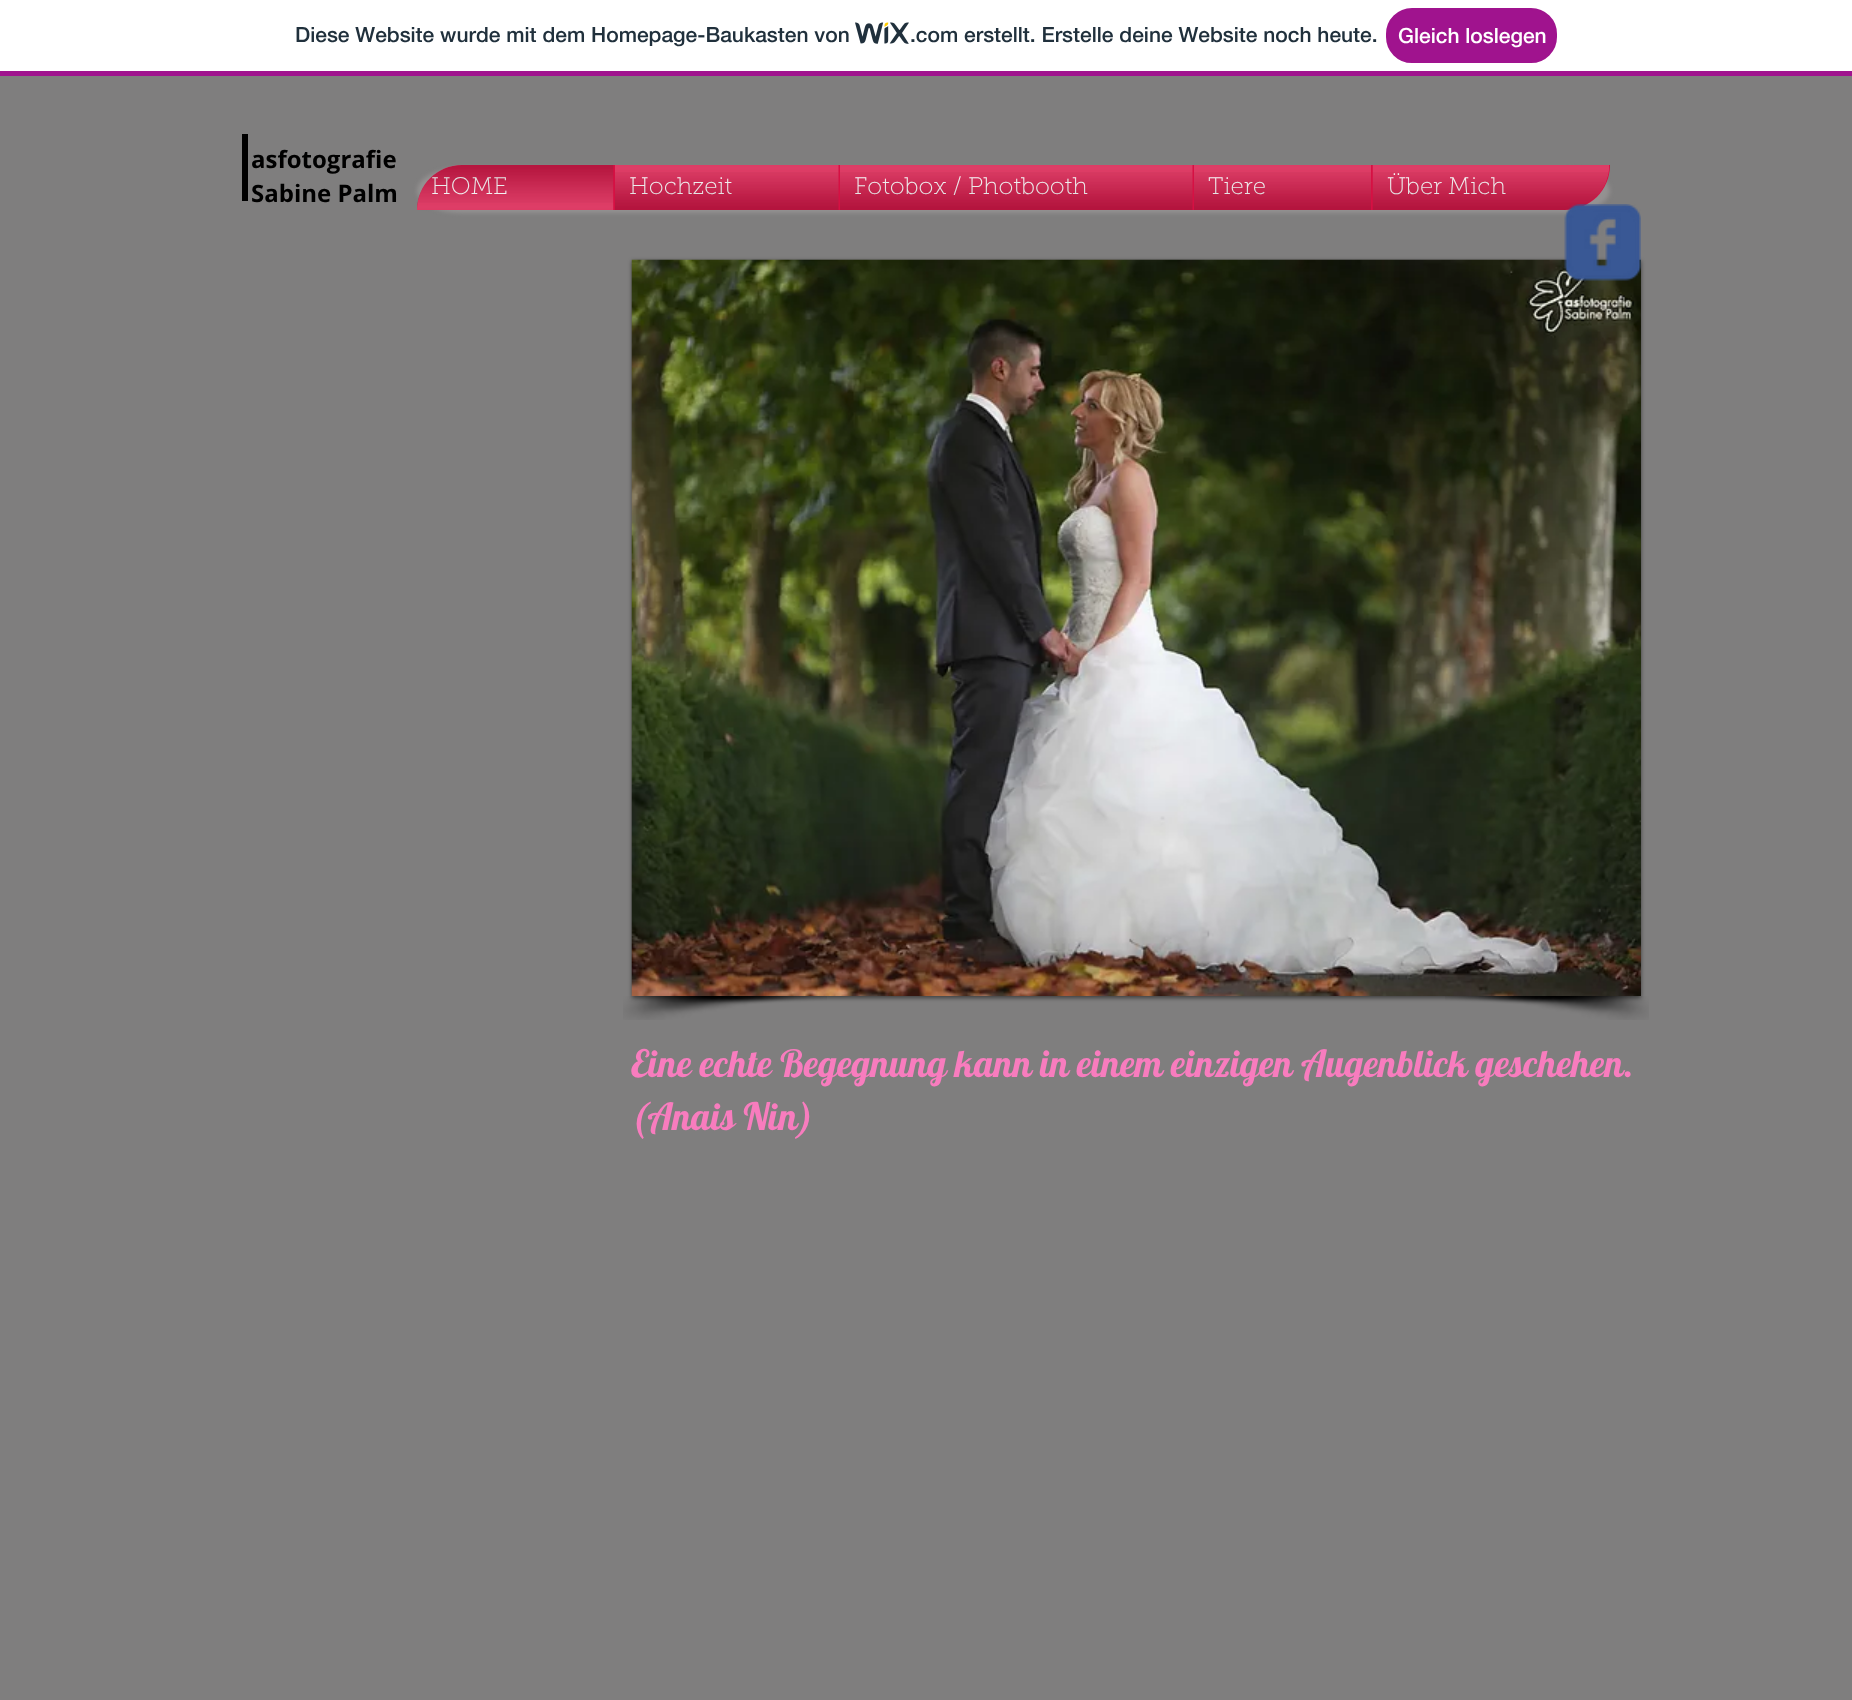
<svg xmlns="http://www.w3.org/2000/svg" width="1852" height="1700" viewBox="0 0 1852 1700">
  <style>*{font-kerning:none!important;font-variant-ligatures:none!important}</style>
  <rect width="100%" height="100%" fill="rgb(255,255,255)"/>
  <rect x="0" y="71" width="1852" height="5" fill="rgb(160,19,142)"/>
  <text x="295" y="42" font-family="'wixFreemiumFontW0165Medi'" font-size="21" font-weight="500" fill="rgb(32,48,60)">Diese Website wurde mit dem Homepage-Baukasten von</text>
  <image x="855" y="22" width="54" height="22" href="pic1.png"/>
  <text x="910" y="42" font-family="'wixFreemiumFontW0165Medi'" font-size="21" font-weight="500" fill="rgb(32,48,60)">.com erstellt. Erstelle deine Website noch heute.</text>
  <rect x="1387" y="9" width="169" height="53" rx="25" fill="rgb(160,19,142)" stroke="rgb(160,19,142)" stroke-width="2"/>
  <text x="1398" y="43" font-family="'wixFreemiumFontW0165Medi'" font-size="21" font-weight="500" fill="rgb(255,255,255)">Gleich loslegen</text>
  <rect x="0" y="76" width="1852" height="1624" fill="rgb(127,126,126)"/>
  <rect x="242" y="134" width="6" height="67" fill="rgb(0,0,0)"/>
  <rect x="417" y="168" width="1193" height="45" rx="45" fill="rgba(162,158,158,0.6)" filter="blur(2px)"/>
  <image x="417" y="165" width="1193" height="45" href="pic3.png"/>
  <image x="417" y="173" width="1185" height="37" href="pic4.png"/>
  <path d="M1371 165H1610C1610 190 1590 210 1565 210H1371Z" fill="rgb(214,16,67)"/>
  <text x="1387" y="194" font-family="'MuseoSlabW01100'" font-size="24" font-weight="100" fill="rgb(255,255,255)">Über Mich</text>
  <image x="1372" y="165" width="237" height="45" href="pic13.png"/>
  <image x="1372" y="172" width="236" height="38" href="pic14.png"/>
  <rect x="632" y="261" width="1009" height="737" fill="rgba(0,0,0,0.5)" filter="blur(2px)"/>
  <image x="631" y="259" width="1010" height="737" href="pic15.png"/>
  <image x="1564" y="204" width="77" height="77" href="pic2.png"/>
  <g font-family="Open Sans" font-size="24" font-weight="bold" fill="rgb(0,0,0)">
    <text>
      <tspan x="251" y="168">asfotografie</tspan>
      <tspan x="251" y="202">Sabine Palm</tspan>
    </text>
  </g>
  <path d="M462 165H614V210H417C417 185 437 165 462 165Z" fill="rgb(214,16,67)"/>
  <text x="431" y="194" font-family="'MuseoSlabW01100'" font-size="24" font-weight="100" fill="rgb(255,255,255)">HOME</text>
  <image x="418" y="165" width="196" height="38" href="pic5.png"/>
  <image x="417" y="165" width="197" height="45" href="pic6.png"/>
  <rect x="614" y="165" width="757" height="45" fill="rgb(214,16,67)"/>
  <text x="629" y="194" font-family="'MuseoSlabW01100'" font-size="24" font-weight="100" fill="rgb(255,255,255)">Hochzeit</text>
  <image x="615" y="165" width="224" height="45" href="pic7.png"/>
  <image x="615" y="172" width="224" height="38" href="pic8.png"/>
  <text x="854" y="194" font-family="'MuseoSlabW01100'" font-size="24" font-weight="100" fill="rgb(255,255,255)">Fotobox / Photbooth</text>
  <image x="840" y="165" width="353" height="45" href="pic9.png"/>
  <image x="840" y="172" width="353" height="38" href="pic10.png"/>
  <text x="1208" y="194" font-family="'MuseoSlabW01100'" font-size="24" font-weight="100" fill="rgb(255,255,255)">Tiere</text>
  <image x="1194" y="165" width="177" height="45" href="pic11.png"/>
  <image x="1194" y="172" width="177" height="38" href="pic12.png"/>
  <image x="623" y="996" width="204" height="24" href="pic16.png"/>
  <image x="1445" y="996" width="204" height="24" href="pic17.png"/>
  <g font-family="Lobster" font-size="37.5" fill="rgb(248,124,190)">
    <text x="631" y="1077">Eine echte Begegnung kann in einem</text>
    <text x="1171" y="1077">einzigen Augenblick geschehen.</text>
    <text x="631" y="1130">(Anais Nin)</text>
  </g>
</svg>
